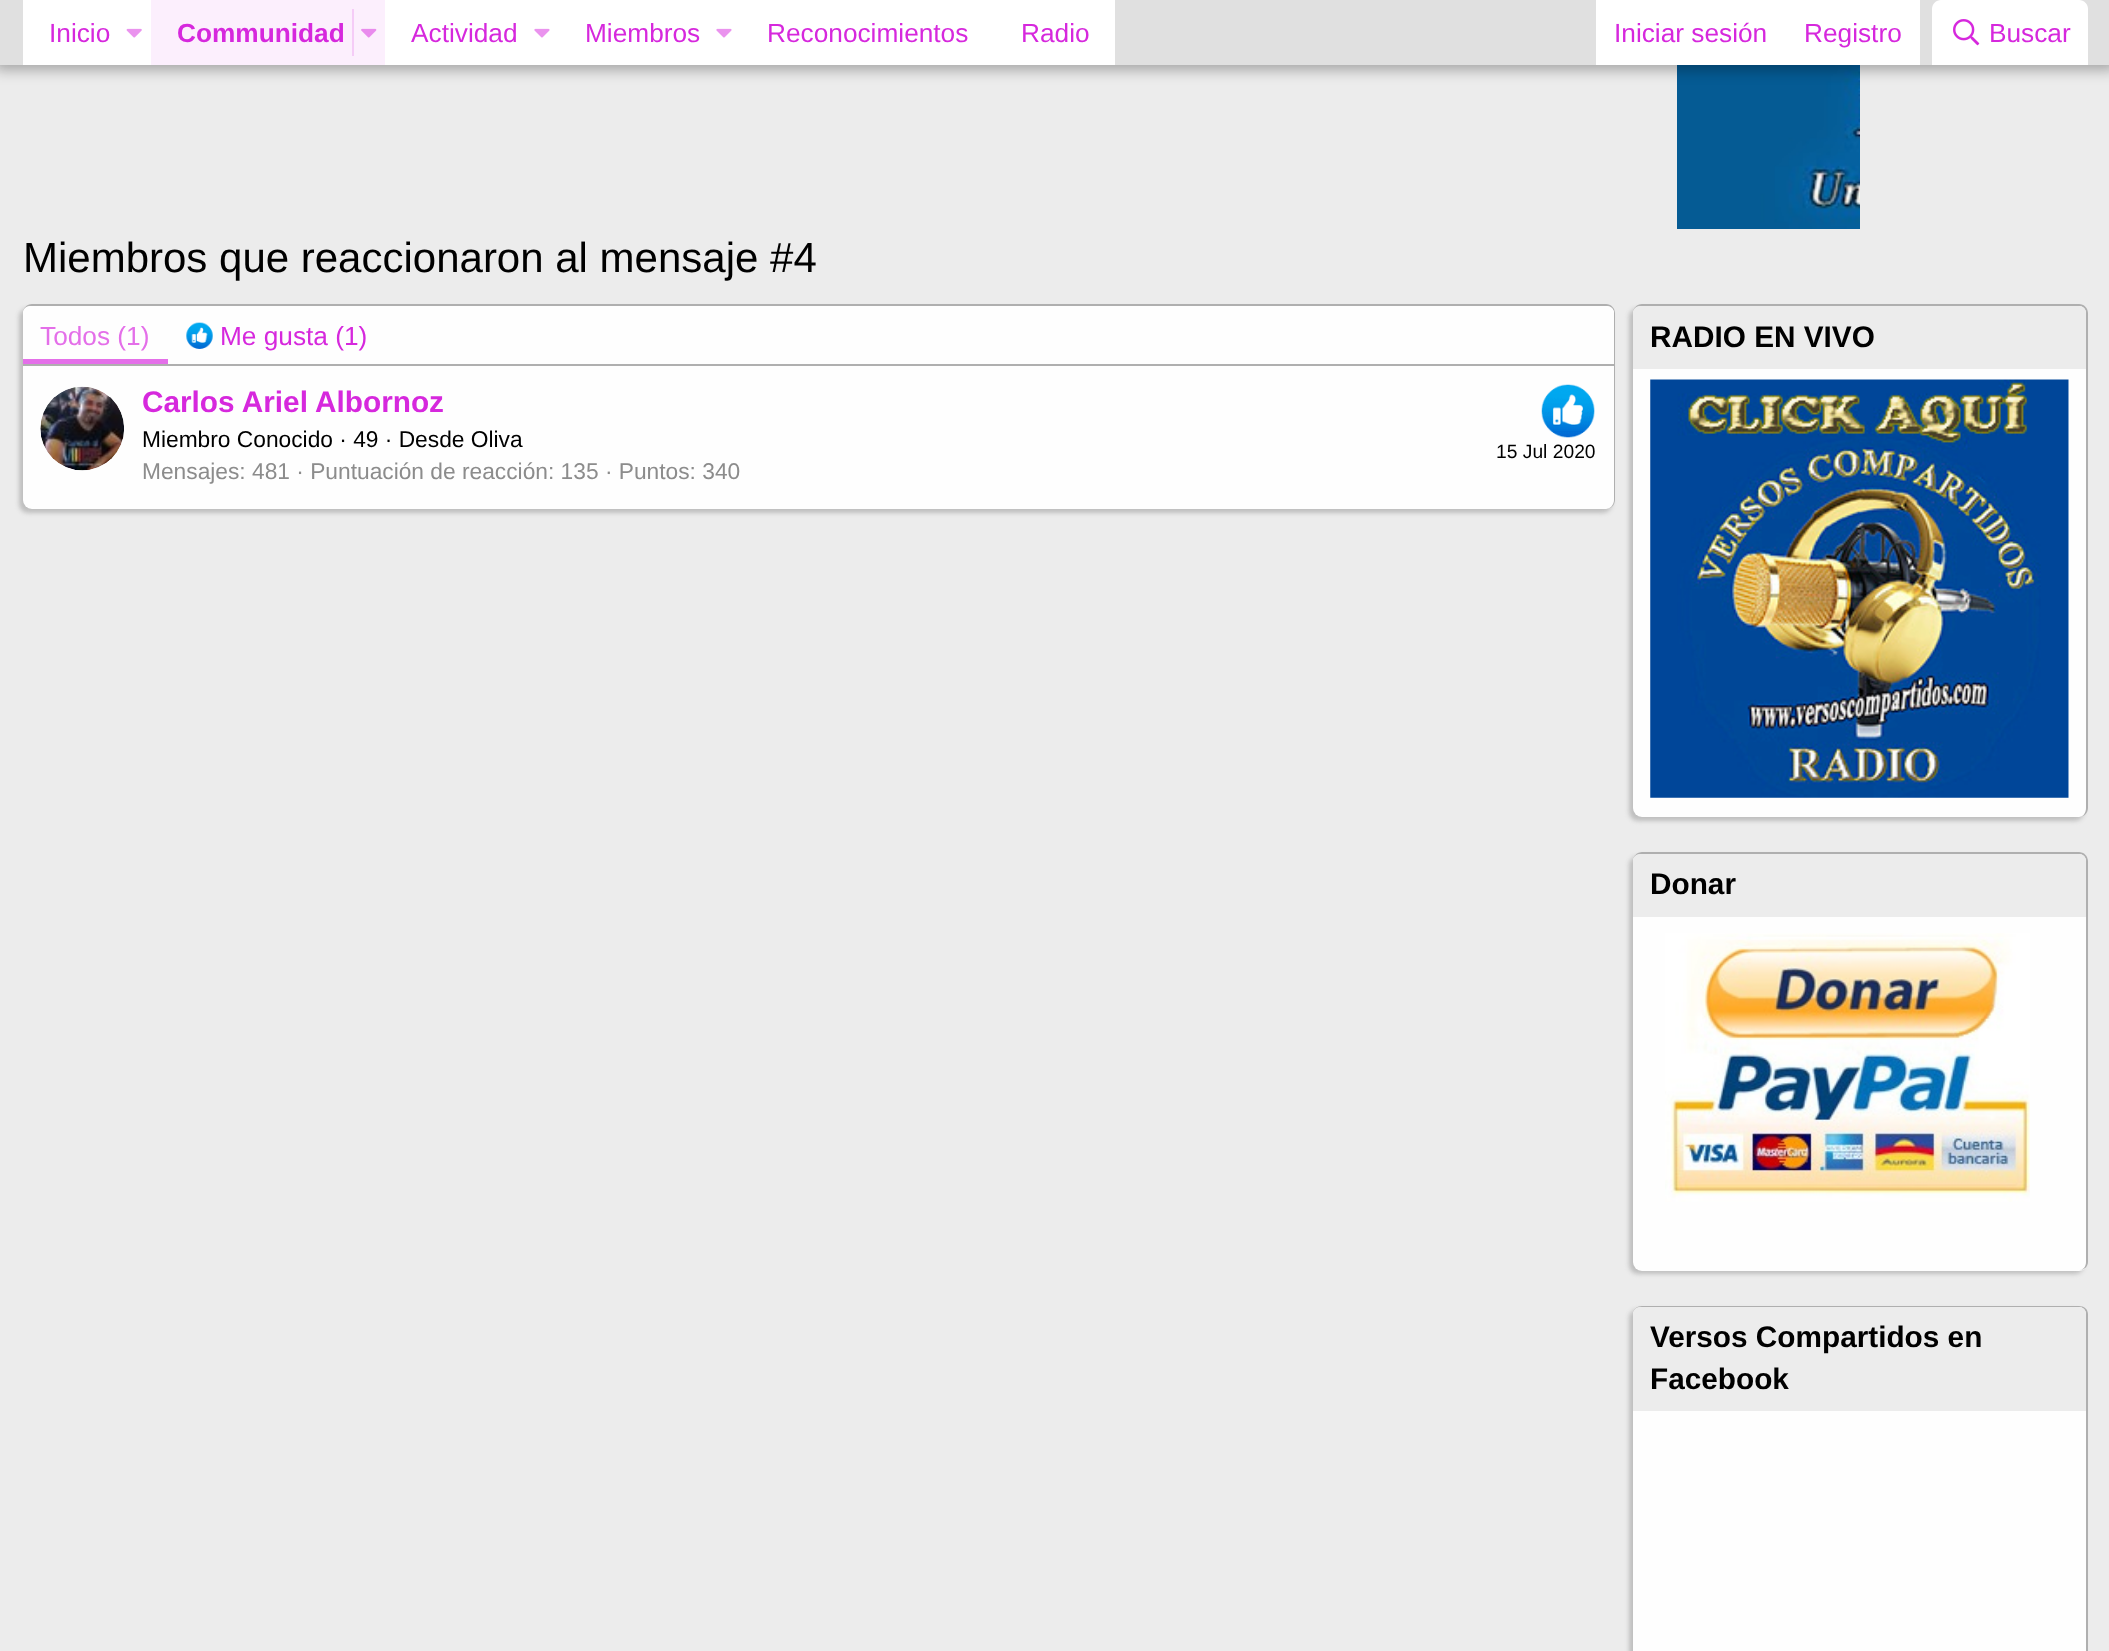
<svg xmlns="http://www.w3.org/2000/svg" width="2109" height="1651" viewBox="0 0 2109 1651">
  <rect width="100%" height="100%" fill="rgb(236,236,236)"/>
  <image x="1677" y="65" width="183" height="164" href="pic5.png"/>
  <rect x="-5" y="-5" width="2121" height="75" fill="rgba(0,0,0,0.3)" filter="blur(7px)"/>
  <rect x="0" y="0" width="2109" height="65" fill="rgb(224,224,224)"/>
  <rect x="23" y="0" width="128" height="65" fill="rgb(255,255,255)"/>
  <text x="49" y="42" font-family="Liberation Sans" font-size="26.25" fill="rgb(214,40,221)">Inicio</text>
  <image x="126" y="28" width="16" height="10" href="pic1.png"/>
  <rect x="151" y="0" width="234" height="65" fill="rgb(252,239,253)"/>
  <text x="177" y="42" font-family="Liberation Sans" font-size="26.25" font-weight="bold" fill="rgb(214,40,221)">Communidad</text>
  <rect x="352" y="9" width="2" height="47" fill="rgb(245,204,247)"/>
  <image x="361" y="28" width="16" height="10" href="pic2.png"/>
  <rect x="385" y="0" width="730" height="65" fill="rgb(255,255,255)"/>
  <text x="411" y="42" font-family="Liberation Sans" font-size="26.25" fill="rgb(214,40,221)">Actividad</text>
  <image x="534" y="28" width="16" height="10" href="pic3.png"/>
  <text x="585" y="42" font-family="Liberation Sans" font-size="26.25" fill="rgb(214,40,221)">Miembros</text>
  <image x="716" y="28" width="16" height="10" href="pic3.png"/>
  <g font-family="Liberation Sans" font-size="26.25" fill="rgb(214,40,221)">
    <text x="767" y="42">Reconocimientos</text>
    <text x="1021" y="42">Radio</text>
  </g>
  <rect x="1596" y="0" width="324" height="65" fill="rgb(255,255,255)"/>
  <g font-family="Liberation Sans" font-size="26.25" fill="rgb(214,40,221)">
    <text x="1614" y="42">Iniciar sesión</text>
    <text x="1804" y="42">Registro</text>
  </g>
  <path d="M1941 0H2079C2084 0 2088 4 2088 9V65H1932V9C1932 4 1936 0 1941 0Z" fill="rgb(255,255,255)"/>
  <image x="1953" y="19" width="27" height="27" href="pic4.png"/>
  <text x="1989" y="42" font-family="Liberation Sans" font-size="26.25" fill="rgb(214,40,221)">Buscar</text>
  <text x="23" y="272" font-family="Liberation Sans" font-size="42" fill="rgb(0,0,0)">Miembros que reaccionaron al mensaje #4</text>
  <rect x="19" y="308" width="1593" height="205" rx="9" fill="rgb(191,191,191)" filter="blur(2px)"/>
  <rect x="23" y="305" width="1592" height="204" rx="9" fill="rgb(254,254,254)"/>
  <path d="M32 304H1606C1611 304 1615 308 1615 313V500C1615 505 1611 509 1606 509H32C27 509 23 505 23 500V313C23 308 27 304 32 304ZM32 306H1606C1610 306 1614 309 1614 313V500C1614 505 1610 509 1606 509H32C27 509 23 505 23 500V313C23 309 27 306 32 306Z" fill="rgb(175,175,175)" fill-rule="evenodd"/>
  <path d="M30 306H1607C1611 306 1614 309 1614 313V366H23V313C23 309 26 306 30 306Z" fill="rgb(254,254,254)"/>
  <rect x="23" y="364" width="1591" height="2" fill="rgb(175,175,175)"/>
  <rect x="23" y="359" width="145" height="5" fill="rgb(228,111,233)"/>
  <text x="40" y="345" font-family="Liberation Sans" font-size="26.25" fill="rgb(228,111,233)">Todos (1)</text>
  <image x="186" y="322" width="27" height="27" href="pic6.png"/>
  <text x="220" y="345" font-family="Liberation Sans" font-size="26.25" fill="rgb(214,40,221)">Me gusta (1)</text>
  <image x="40" y="386" width="84" height="85" href="pic7.png"/>
  <text x="142" y="412" font-family="Liberation Sans" font-size="29.75" font-weight="bold" fill="rgb(214,40,221)">Carlos Ariel Albornoz</text>
  <text x="142" y="447" font-family="Liberation Sans" font-size="22.75" fill="rgb(0,0,0)">Miembro Conocido · 49 · Desde Oliva</text>
  <image x="1541" y="384" width="54" height="54" href="pic8.png"/>
  <text x="1496" y="458" font-family="Liberation Sans" font-size="19.25" fill="rgb(0,0,0)">15 Jul 2020</text>
  <text x="142" y="479" font-family="Liberation Sans" font-size="22.75" fill="rgb(140,140,140)">Mensajes: 481 · Puntuación de reacción: 135 · Puntos: 340</text>
  <rect x="1629" y="308" width="455" height="513" rx="9" fill="rgb(191,191,191)" filter="blur(2px)"/>
  <rect x="1633" y="305" width="455" height="512" rx="9" fill="rgb(254,254,254)"/>
  <path d="M1642 304H2079C2084 304 2088 308 2088 313V808C2088 813 2084 817 2079 817H1642C1637 817 1633 813 1633 808V313C1633 308 1637 304 1642 304ZM1642 306H2079C2083 306 2086 309 2086 313V808C2086 813 2083 817 2079 817H1642C1637 817 1633 813 1633 808V313C1633 309 1637 306 1642 306Z" fill="rgb(175,175,175)" fill-rule="evenodd"/>
  <path d="M1640 306H2079C2083 306 2086 309 2086 313V369H1633V313C1633 309 1636 306 1640 306Z" fill="rgb(236,236,236)"/>
  <text x="1650" y="347" font-family="Liberation Sans" font-size="29.75" font-weight="bold" fill="rgb(0,0,0)">RADIO EN VIVO</text>
  <image x="1650" y="379" width="419" height="419" href="pic9.png"/>
  <rect x="1629" y="856" width="455" height="418" rx="9" fill="rgb(191,191,191)" filter="blur(2px)"/>
  <rect x="1633" y="852" width="455" height="419" rx="9" fill="rgb(254,254,254)"/>
  <path d="M1642 852H2079C2084 852 2088 856 2088 861V1262C2088 1267 2084 1270 2079 1270H1642C1637 1270 1633 1267 1633 1262V861C1633 856 1637 852 1642 852ZM1642 854H2079C2083 854 2086 857 2086 861V1262C2086 1267 2083 1270 2079 1270H1642C1637 1270 1633 1267 1633 1262V861C1633 857 1637 854 1642 854Z" fill="rgb(175,175,175)" fill-rule="evenodd"/>
  <path d="M1640 854H2079C2083 854 2086 857 2086 861V917H1633V861C1633 857 1636 854 1640 854Z" fill="rgb(236,236,236)"/>
  <text x="1650" y="894" font-family="Liberation Sans" font-size="29.75" font-weight="bold" fill="rgb(0,0,0)">Donar</text>
  <image x="1665" y="933" width="365" height="269" href="pic10.png"/>
  <rect x="1629" y="1309" width="455" height="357" rx="9" fill="rgb(191,191,191)" filter="blur(2px)"/>
  <rect x="1633" y="1306" width="455" height="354" rx="9" fill="rgb(254,254,254)"/>
  <path d="M1642 1306H2079C2084 1306 2088 1309 2088 1314V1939C2088 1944 2084 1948 2079 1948H1642C1637 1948 1633 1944 1633 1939V1314C1633 1309 1637 1306 1642 1306ZM1642 1307H2079C2083 1307 2086 1310 2086 1314V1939C2086 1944 2083 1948 2079 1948H1642C1637 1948 1633 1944 1633 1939V1314C1633 1310 1637 1307 1642 1307Z" fill="rgb(175,175,175)" fill-rule="evenodd"/>
  <path d="M1640 1307H2079C2083 1307 2086 1310 2086 1314V1411H1633V1314C1633 1310 1636 1307 1640 1307Z" fill="rgb(236,236,236)"/>
  <g font-family="Liberation Sans" font-size="29.75" font-weight="bold" fill="rgb(0,0,0)">
    <text>
      <tspan x="1650" y="1347">Versos Compartidos en</tspan>
      <tspan x="1650" y="1389">Facebook</tspan>
    </text>
  </g>
</svg>
